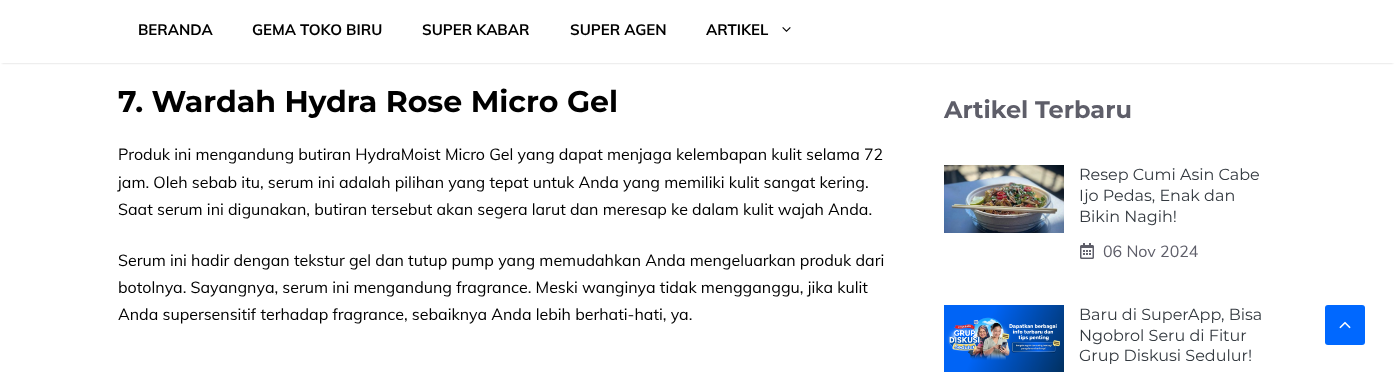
<svg xmlns="http://www.w3.org/2000/svg" width="1395" height="375" viewBox="0 0 1395 375">
  <rect width="100%" height="100%" fill="rgb(255,255,255)"/>
  <rect x="2" y="4" width="1391" height="59" fill="rgba(0,0,0,0.2)" filter="blur(1px)"/>
  <rect x="0" y="2" width="1395" height="61" fill="rgb(255,255,255)"/>
  <g font-family="Muli" font-size="15" font-weight="bold" fill="rgb(0,0,0)">
    <text x="138" y="35">BERANDA</text>
    <text x="252" y="35">GEMA TOKO BIRU</text>
    <text x="422" y="35">SUPER KABAR</text>
    <text x="570" y="35">SUPER AGEN</text>
    <text x="706" y="35">ARTIKEL</text>
  </g>
  <image x="782" y="27" width="9" height="5" href="pic1.png"/>
  <text x="118" y="112" font-family="Montserrat" font-size="30" font-weight="bold" fill="rgb(0,0,0)">7. Wardah Hydra Rose Micro Gel</text>
  <g font-family="Muli" font-size="16" fill="rgb(0,0,0)">
    <text>
      <tspan x="118" y="160">Produk ini mengandung butiran HydraMoist Micro Gel yang dapat menjaga kelembapan kulit selama 72</tspan>
      <tspan x="118" y="188">jam. Oleh sebab itu, serum ini adalah pilihan yang tepat untuk Anda yang memiliki kulit sangat kering.</tspan>
      <tspan x="118" y="215">Saat serum ini digunakan, butiran tersebut akan segera larut dan meresap ke dalam kulit wajah Anda.</tspan>
    </text>
    <text>
      <tspan x="118" y="266">Serum ini hadir dengan tekstur gel dan tutup pump yang memudahkan Anda mengeluarkan produk dari</tspan>
      <tspan x="118" y="293">botolnya. Sayangnya, serum ini mengandung fragrance. Meski wanginya tidak mengganggu, jika kulit</tspan>
      <tspan x="118" y="320">Anda supersensitif terhadap fragrance, sebaiknya Anda lebih berhati-hati, ya.</tspan>
    </text>
  </g>
  <text x="944" y="118" font-family="Montserrat" font-size="24" font-weight="bold" fill="rgb(94,94,105)">Artikel Terbaru</text>
  <image x="944" y="165" width="120" height="68" href="pic2.png"/>
  <g font-family="Montserrat" font-size="16" fill="rgb(52,58,64)">
    <text>
      <tspan x="1079" y="180">Resep Cumi Asin Cabe</tspan>
      <tspan x="1079" y="201">Ijo Pedas, Enak dan</tspan>
      <tspan x="1079" y="222">Bikin Nagih!</tspan>
    </text>
  </g>
  <image x="1080" y="243" width="14" height="16" href="pic3.png"/>
  <text x="1103" y="257" font-family="Muli" font-size="16" fill="rgb(94,94,105)">06 Nov 2024</text>
  <image x="944" y="305" width="120" height="67" href="pic4.png"/>
  <g font-family="Montserrat" font-size="16" fill="rgb(52,58,64)">
    <text>
      <tspan x="1079" y="320">Baru di SuperApp, Bisa</tspan>
      <tspan x="1079" y="341">Ngobrol Seru di Fitur</tspan>
      <tspan x="1079" y="361">Grup Diskusi Sedulur!</tspan>
    </text>
  </g>
  <rect x="1325" y="305" width="40" height="40" rx="3" fill="rgb(0,104,255)"/>
  <image x="1339" y="321" width="12" height="8" href="pic5.png"/>
</svg>
